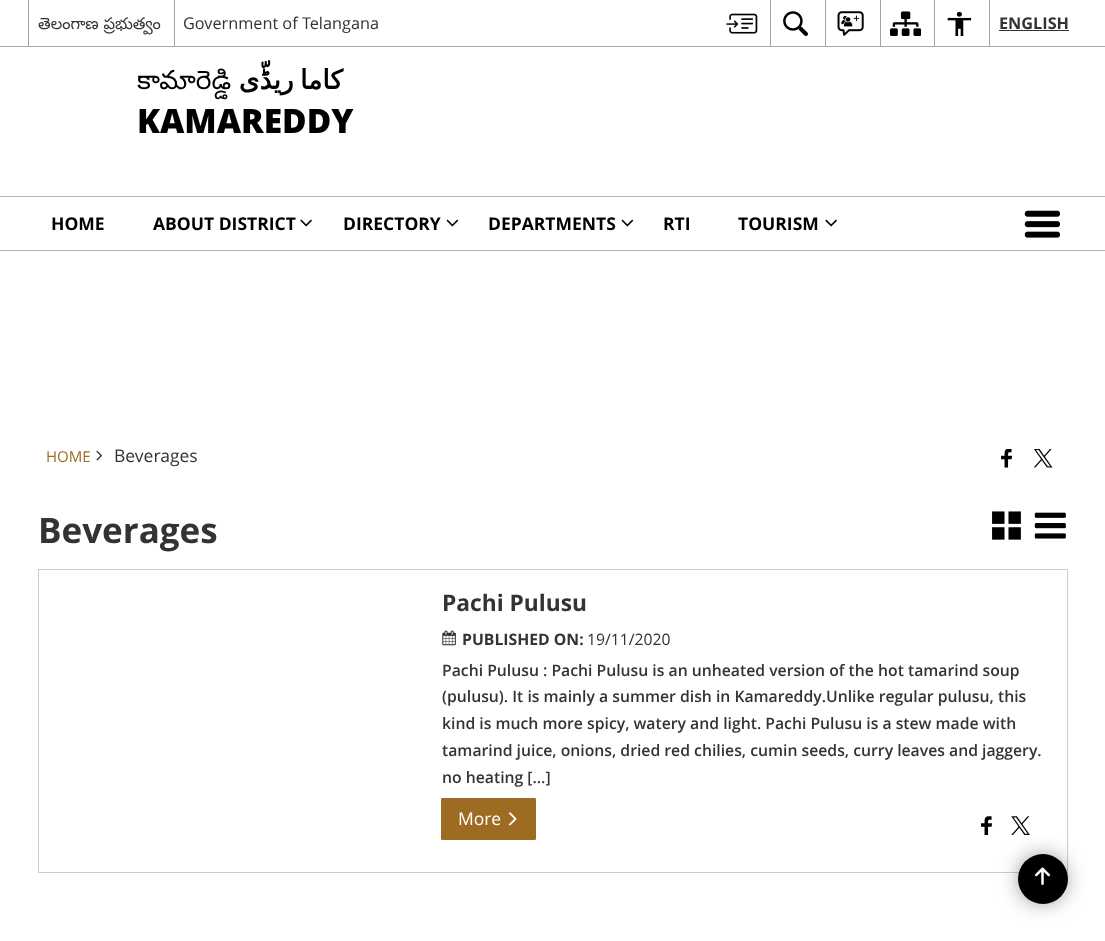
<svg xmlns="http://www.w3.org/2000/svg" width="1105" height="941" viewBox="0 0 1105 941">
  <rect width="100%" height="100%" fill="rgb(255,255,255)"/>
  <rect x="0" y="46" width="1105" height="1" fill="rgb(171,171,171)"/>
  <rect x="28" y="0" width="1" height="46" fill="rgb(163,163,163)"/>
  <text x="38" y="29" font-family="Noto Sans Telugu" font-size="16.25" fill="rgb(51,51,51)">తెలంగాణ ప్రభుత్వం</text>
  <rect x="174" y="0" width="1" height="46" fill="rgb(163,163,163)"/>
  <text x="183" y="29" font-family="Open Sans" font-size="16.25" fill="rgb(51,51,51)">Government of Telangana</text>
  <image x="726" y="13" width="32" height="21" href="pic1.png"/>
  <rect x="770" y="0" width="1" height="46" fill="rgb(163,163,163)"/>
  <image x="783" y="11" width="25" height="25" href="pic2.png"/>
  <rect x="825" y="0" width="1" height="46" fill="rgb(163,163,163)"/>
  <image x="837" y="11" width="27" height="25" href="pic3.png"/>
  <rect x="880" y="0" width="1" height="46" fill="rgb(163,163,163)"/>
  <image x="890" y="11" width="31" height="25" href="pic4.png"/>
  <rect x="934" y="0" width="1" height="46" fill="rgb(163,163,163)"/>
  <image x="947" y="11" width="25" height="25" href="pic5.png"/>
  <rect x="989" y="0" width="1" height="46" fill="rgb(163,163,163)"/>
  <text x="999" y="29" font-family="Open Sans" font-size="16.25" font-weight="bold" fill="rgb(51,51,51)">ENGLISH</text>
  <rect x="999" y="30" width="70" height="1" fill="rgb(51,51,51)"/>
  <text x="137" y="89" font-family="Noto Sans Telugu" font-size="26.5" fill="rgb(0,0,0)">కామారెడ్డి</text>
  <text x="343" y="89" word-spacing="-2" font-family="DejaVu Sans" font-size="26.5" font-weight="bold" direction="rtl" fill="rgb(0,0,0)">کاما ریڈّی</text>
  <text x="137" y="133" font-family="Open Sans" font-size="33.5" font-weight="800" fill="rgb(0,0,0)">KAMAREDDY</text>
  <rect x="0" y="196" width="1105" height="1" fill="rgb(179,179,179)"/>
  <rect x="0" y="250" width="1105" height="1" fill="rgb(179,179,179)"/>
  <g font-family="Open Sans" font-size="17.5" font-weight="bold" fill="rgb(0,0,0)">
    <text x="51" y="230">HOME</text>
    <text x="153" y="230">ABOUT DISTRICT</text>
  </g>
  <image x="300" y="219" width="12" height="8" href="pic6.png"/>
  <text x="343" y="230" font-family="Open Sans" font-size="17.5" font-weight="bold" fill="rgb(0,0,0)">DIRECTORY</text>
  <image x="446" y="219" width="13" height="8" href="pic7.png"/>
  <text x="488" y="230" font-family="Open Sans" font-size="17.5" font-weight="bold" fill="rgb(0,0,0)">DEPARTMENTS</text>
  <image x="621" y="219" width="13" height="8" href="pic7.png"/>
  <g font-family="Open Sans" font-size="17.5" font-weight="bold" fill="rgb(0,0,0)">
    <text x="663" y="230">RTI</text>
    <text x="738" y="230">TOURISM</text>
  </g>
  <image x="825" y="219" width="12" height="8" href="pic6.png"/>
  <image x="1024" y="210" width="37" height="28" href="pic8.png"/>
  <text x="46" y="462" font-family="Open Sans" font-size="15" fill="rgb(158,107,34)">HOME</text>
  <image x="96" y="450" width="6" height="11" href="pic9.png"/>
  <text x="114" y="462" font-family="Open Sans" font-size="17.5" fill="rgb(51,51,51)">Beverages</text>
  <image x="1001" y="449" width="12" height="19" href="pic10.png"/>
  <image x="1034" y="449" width="19" height="19" href="pic11.png"/>
  <text x="38" y="543" font-family="Open Sans" font-size="35" font-weight="bold" fill="rgb(51,51,51)">Beverages</text>
  <image x="992" y="511" width="29" height="29" href="pic12.png"/>
  <image x="1034" y="512" width="32" height="27" href="pic13.png"/>
  <rect x="38.5" y="569.5" width="1029" height="303" fill="none" stroke="rgb(204,204,204)"/>
  <text x="442" y="611" font-family="Open Sans" font-size="22.75" font-weight="bold" fill="rgb(51,51,51)">Pachi Pulusu</text>
  <image x="442" y="630" width="14" height="16" href="pic14.png"/>
  <text x="462" y="645" font-family="Open Sans" font-size="15.75" font-weight="bold" fill="rgb(51,51,51)">PUBLISHED ON:</text>
  <text x="587" y="645" font-family="Open Sans" font-size="15.75" fill="rgb(51,51,51)">19/11/2020</text>
  <g font-family="Open Sans" font-size="15.75" font-weight="600" fill="rgb(51,51,51)">
    <text>
      <tspan x="442" y="676">Pachi Pulusu : Pachi Pulusu is an unheated version of the hot tamarind soup</tspan>
      <tspan x="442" y="702">(pulusu). It is mainly a summer dish in Kamareddy.Unlike regular pulusu, this</tspan>
      <tspan x="442" y="729">kind is much more spicy, watery and light. Pachi Pulusu is a stew made with</tspan>
      <tspan x="442" y="756">tamarind juice, onions, dried red chilies, cumin seeds, curry leaves and jaggery.</tspan>
      <tspan x="442" y="783">no heating […]</tspan>
    </text>
  </g>
  <rect x="441.5" y="798.5" width="94" height="41" rx="0.5" fill="rgb(158,107,34)" stroke="rgb(158,107,34)"/>
  <text x="458" y="825" font-family="Open Sans" font-size="17.5" fill="rgb(255,255,255)">More</text>
  <image x="508" y="812" width="9" height="14" href="pic15.png"/>
  <image x="981" y="816" width="12" height="19" href="pic16.png"/>
  <image x="1011" y="816" width="19" height="19" href="pic17.png"/>
  <rect x="1024" y="860" width="37" height="38" rx="18.5" fill="rgb(60,60,60)" filter="blur(12px)"/>
  <circle cx="1043" cy="879" r="25" fill="rgb(0,0,0)"/>
  <image x="1035" y="867" width="15" height="18" href="pic18.png"/>
</svg>
